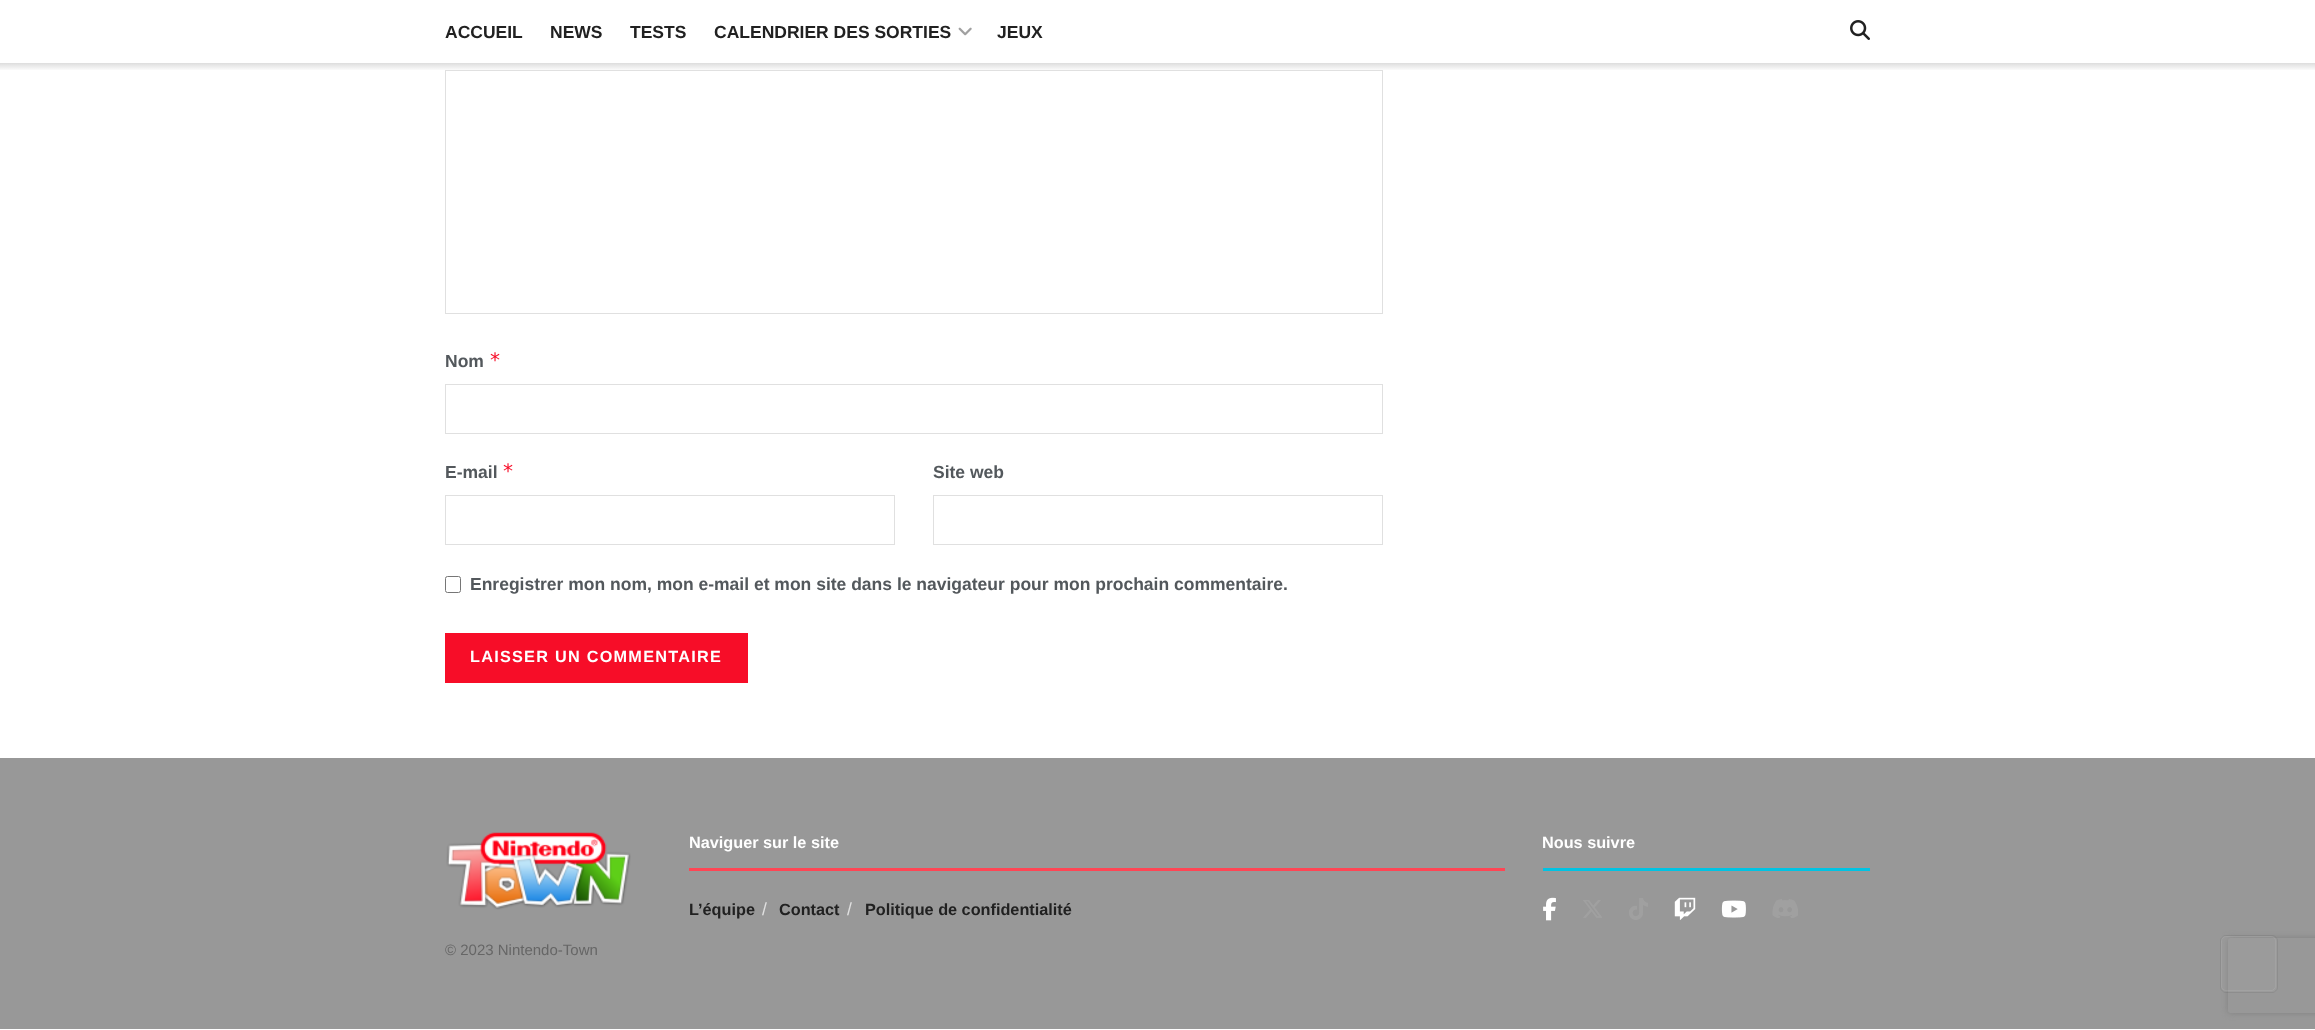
<svg xmlns="http://www.w3.org/2000/svg" width="2315" height="1030" viewBox="0 0 2315 1030">
  <defs>
    <linearGradient id="g1" gradientUnits="userSpaceOnUse" x1="1158" y1="62" x2="1158" y2="71"><stop offset="0" stop-color="rgb(0,0,0)" stop-opacity="0.15"/><stop offset="1" stop-color="rgb(0,0,0)" stop-opacity="0"/></linearGradient>
    <clipPath id="clip1"><path d="M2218 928H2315V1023H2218ZM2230.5 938H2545.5C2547 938 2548 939 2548 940.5V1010.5C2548 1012 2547 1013 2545.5 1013H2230.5C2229 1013 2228 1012 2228 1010.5V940.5C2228 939 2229 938 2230.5 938Z" clip-rule="evenodd"/></clipPath>
  </defs>
  <rect width="100%" height="100%" fill="rgb(255,255,255)"/>
  <g font-family="Liberation Sans" font-size="17.5" font-weight="bold" fill="rgb(33,33,33)">
    <text x="445" y="38">ACCUEIL</text>
    <text x="550" y="38">NEWS</text>
    <text x="630" y="38">TESTS</text>
    <text x="714" y="38">CALENDRIER DES SORTIES</text>
  </g>
  <image x="958" y="27" width="14" height="9" href="pic1.png"/>
  <text x="997" y="38" font-family="Liberation Sans" font-size="17.5" font-weight="bold" fill="rgb(33,33,33)">JEUX</text>
  <image x="1850" y="20" width="20" height="20" href="pic2.png"/>
  <rect x="0" y="63" width="2315" height="7" fill="url(#g1)"/>
  <rect x="445.5" y="70.5" width="937" height="243" fill="none" stroke="rgb(224,224,224)"/>
  <text x="445" y="367" font-family="Liberation Sans" font-size="17.5" font-weight="bold" fill="rgb(83,88,92)">Nom</text>
  <text x="489" y="367" font-family="DejaVu Sans Mono" font-size="20" fill="rgb(247,13,40)">*</text>
  <rect x="445.5" y="384.5" width="937" height="49" fill="none" stroke="rgb(224,224,224)"/>
  <text x="445" y="478" font-family="Liberation Sans" font-size="17.5" font-weight="bold" fill="rgb(83,88,92)">E-mail</text>
  <text x="502" y="478" font-family="DejaVu Sans Mono" font-size="20" fill="rgb(247,13,40)">*</text>
  <rect x="445.5" y="495.5" width="449" height="49" fill="none" stroke="rgb(224,224,224)"/>
  <text x="933" y="478" font-family="Liberation Sans" font-size="17.5" font-weight="bold" fill="rgb(83,88,92)">Site web</text>
  <rect x="933.5" y="495.5" width="449" height="49" fill="none" stroke="rgb(224,224,224)"/>
  <rect x="445.5" y="576.5" width="15" height="16" rx="2" fill="none" stroke="rgb(118,118,118)"/>
  <text x="470" y="590" font-family="Liberation Sans" font-size="17.5" font-weight="bold" fill="rgb(83,88,92)">Enregistrer mon nom, mon e-mail et mon site dans le navigateur pour mon prochain commentaire.</text>
  <rect x="445" y="633" width="303" height="50" fill="rgb(247,13,40)"/>
  <text x="470" y="662" font-family="Liberation Sans" font-size="16.25" font-weight="bold" letter-spacing="1.25" fill="rgb(255,255,255)">LAISSER UN COMMENTAIRE</text>
  <rect x="0" y="758" width="2315" height="271" fill="rgb(152,152,152)"/>
  <rect x="689" y="868" width="816" height="3" fill="rgb(255,69,84)"/>
  <text x="689" y="848" font-family="Liberation Sans" font-size="16.25" font-weight="bold" fill="rgb(255,255,255)">Naviguer sur le site</text>
  <text x="689" y="915" font-family="Liberation Sans" font-size="16.25" font-weight="bold" fill="rgb(33,33,33)">L’équipe</text>
  <text x="762" y="915" font-family="Liberation Sans" font-size="17.5" fill="rgb(224,224,224)">/</text>
  <text x="779" y="915" font-family="Liberation Sans" font-size="16.25" font-weight="bold" fill="rgb(33,33,33)">Contact</text>
  <text x="847" y="915" font-family="Liberation Sans" font-size="17.5" fill="rgb(224,224,224)">/</text>
  <text x="865" y="915" font-family="Liberation Sans" font-size="16.25" font-weight="bold" fill="rgb(33,33,33)">Politique de confidentialité</text>
  <rect x="1543" y="868" width="327" height="3" fill="rgb(0,195,227)"/>
  <text x="1542" y="848" font-family="Liberation Sans" font-size="16.25" font-weight="bold" fill="rgb(255,255,255)">Nous suivre</text>
  <image x="1543" y="897" width="13" height="24" href="pic3.png"/>
  <image x="1583" y="900" width="19" height="18" href="pic4.png"/>
  <image x="1629" y="898" width="19" height="22" href="pic5.png"/>
  <image x="1674" y="897" width="22" height="23" href="pic6.png"/>
  <image x="1721" y="900" width="25" height="18" href="pic7.png"/>
  <image x="1772" y="899" width="26" height="19" href="pic8.png"/>
  <image x="446" y="832" width="185" height="78" href="pic9.png"/>
  <text x="445" y="955" font-family="Liberation Sans" font-size="15" fill="rgb(102,102,102)">© 2023 Nintendo-Town</text>
  <g clip-path="url(#clip1)">
    <rect x="2228" y="938" width="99" height="75" rx="2.5" fill="rgb(128,128,128)" filter="blur(3px)"/>
  </g>
  <rect x="2220" y="935" width="58" height="58" rx="6" fill="rgba(180,180,180,0.12)"/>
  <rect x="2221.5" y="936.5" width="54" height="54" rx="4.5" fill="none" stroke="rgba(255,255,255,0.08)"/>
  <rect x="2220.5" y="935.5" width="57" height="57" rx="5.5" fill="none" stroke="rgba(0,0,0,0.09)"/>
</svg>
